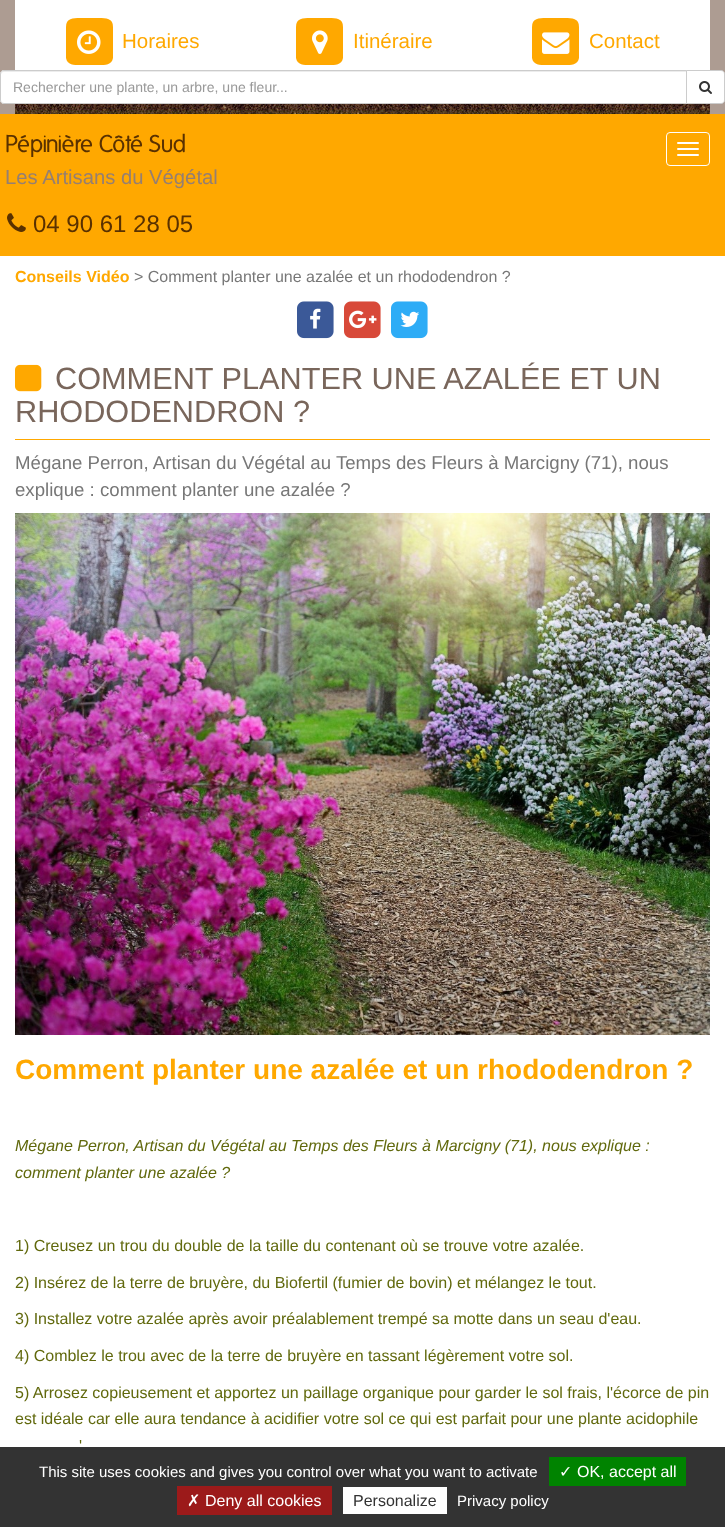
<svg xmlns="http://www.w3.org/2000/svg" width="725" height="1527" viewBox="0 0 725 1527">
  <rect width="100%" height="100%" fill="rgb(255,255,255)"/>
  <rect x="0" y="0" width="725" height="114" fill="rgb(173,156,146)"/>
  <rect x="15" y="0" width="695" height="114" fill="rgb(255,255,255)"/>
  <image x="15" y="104" width="695" height="10" href="pic1.png"/>
  <path d="M113 27V58C112 65 105 65 99 65H80C74 65 67 65 66 58V27C66 18 73 18 80 18H99C106 18 113 18 113 27Z" fill="rgb(255,168,0)"/>
  <image x="77" y="30" width="24" height="24" href="pic2.png"/>
  <text x="122" y="48" font-family="Liberation Sans" font-size="20.5" fill="rgb(255,168,0)">Horaires</text>
  <path d="M343 27V58C342 65 335 65 329 65H310C304 65 297 65 296 58V27C296 18 303 18 310 18H329C336 18 343 18 343 27Z" fill="rgb(255,168,0)"/>
  <image x="312" y="30" width="16" height="24" href="pic3.png"/>
  <text x="353" y="48" font-family="Liberation Sans" font-size="20.5" fill="rgb(255,168,0)">Itinéraire</text>
  <path d="M579 27V58C578 65 571 65 565 65H546C540 65 533 65 532 58V27C532 18 539 18 546 18H565C572 18 579 18 579 27Z" fill="rgb(255,168,0)"/>
  <image x="542" y="32" width="28" height="22" href="pic4.png"/>
  <text x="589" y="48" font-family="Liberation Sans" font-size="20.5" fill="rgb(255,168,0)">Contact</text>
  <path d="M4 70H687V104H4C2 104 0 102 0 100V74C0 72 2 70 4 70Z" fill="rgb(255,255,255)"/>
  <path d="M4 72H686V71H4C2 71 1 72 1 74V75C1 73 2 72 4 72Z" fill="rgb(236,236,236)"/>
  <path d="M4 70.5H686.5V103.5H4C2 103.5 .5 102 .5 100V74C.5 72 2 70.5 4 70.5Z" fill="none" stroke="rgb(204,204,204)"/>
  <text x="13" y="92" font-family="Liberation Sans" font-size="14" fill="rgb(153,153,153)">Rechercher une plante, un arbre, une fleur...</text>
  <path d="M686.5 70.5H721C723 70.5 724.5 72 724.5 74V100C724.5 102 723 103.5 721 103.5H686.5Z" fill="rgb(255,255,255)" stroke="rgb(204,204,204)"/>
  <image x="699" y="81" width="13" height="13" href="pic5.png"/>
  <rect x="0" y="114" width="725" height="142" fill="rgb(255,168,0)"/>
  <text x="5" y="152" font-family="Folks" font-size="23.75" fill="rgb(89,49,0)">Pépinière Côté Sud</text>
  <text x="5" y="184" font-family="Liberation Sans" font-size="20.25" fill="rgb(149,127,114)">Les Artisans du Végétal</text>
  <rect x="666.5" y="132.5" width="43" height="33" rx="3.5" fill="none" stroke="rgb(255,255,255)"/>
  <rect x="677" y="142" width="22" height="2" rx="1" fill="rgb(255,255,255)"/>
  <rect x="677" y="148" width="22" height="2" rx="1" fill="rgb(255,255,255)"/>
  <rect x="677" y="154" width="22" height="2" rx="1" fill="rgb(255,255,255)"/>
  <image x="7" y="213" width="19" height="19" href="pic6.png"/>
  <text x="33" y="232" font-family="Liberation Sans" font-size="24" fill="rgb(89,49,0)">04 90 61 28 05</text>
  <text x="15" y="282" font-family="Liberation Sans" font-size="16" font-weight="bold" fill="rgb(255,168,0)">Conseils Vidéo</text>
  <text x="134" y="282" font-family="Liberation Sans" font-size="16" fill="rgb(119,119,119)">&gt; Comment planter une azalée et un rhododendron ?</text>
  <image x="297" y="301" width="37" height="38" href="pic7.png"/>
  <image x="310" y="308" width="11" height="21" href="pic8.png"/>
  <image x="344" y="301" width="37" height="38" href="pic9.png"/>
  <image x="349" y="310" width="28" height="19" href="pic10.png"/>
  <image x="391" y="301" width="37" height="38" href="pic11.png"/>
  <image x="400" y="311" width="20" height="16" href="pic12.png"/>
  <rect x="15" y="439" width="695" height="1" fill="rgb(255,168,0)"/>
  <image x="15" y="364" width="27" height="28" href="pic13.png"/>
  <g font-family="Liberation Sans" font-size="30.7" fill="rgb(121,102,91)">
    <text x="55" y="389">COMMENT PLANTER UNE AZALÉE ET UN</text>
    <text x="15" y="422">RHODODENDRON ?</text>
  </g>
  <g font-family="Liberation Sans" font-size="18.65" fill="rgb(119,119,119)">
    <text>
      <tspan x="15" y="469">Mégane Perron, Artisan du Végétal au Temps des Fleurs à Marcigny (71), nous</tspan>
      <tspan x="15" y="496">explique : comment planter une azalée ?</tspan>
    </text>
  </g>
  <image x="15" y="513" width="695" height="522" href="pic14.png"/>
  <text x="15" y="1079" font-family="Liberation Sans" font-size="28" font-weight="bold" fill="rgb(255,168,0)">Comment planter une azalée et un rhododendron ?</text>
  <g font-family="Liberation Sans" font-size="16" font-style="italic" fill="rgb(97,105,13)">
    <text>
      <tspan x="15" y="1151">Mégane Perron, Artisan du Végétal au Temps des Fleurs à Marcigny (71), nous explique :</tspan>
      <tspan x="15" y="1178">comment planter une azalée ?</tspan>
    </text>
  </g>
  <g font-family="Liberation Sans" font-size="16" fill="rgb(97,105,13)">
    <text x="15" y="1251">1) Creusez un trou du double de la taille du contenant où se trouve votre azalée.</text>
    <text x="15" y="1288">2) Insérez de la terre de bruyère, du Biofertil (fumier de bovin) et mélangez le tout.</text>
    <text x="15" y="1324">3) Installez votre azalée après avoir préalablement trempé sa motte dans un seau d'eau.</text>
    <text x="15" y="1361">4) Comblez le trou avec de la terre de bruyère en tassant légèrement votre sol.</text>
    <text>
      <tspan x="15" y="1398">5) Arrosez copieusement et apportez un paillage organique pour garder le sol frais, l'écorce de pin</tspan>
      <tspan x="15" y="1424">est idéale car elle aura tendance à acidifier votre sol ce qui est parfait pour une plante acidophile</tspan>
    </text>
    <text x="79" y="1451">'</text>
  </g>
  <rect x="0" y="1447" width="725" height="80" fill="rgb(51,51,51)"/>
  <text x="39" y="1477" font-family="Liberation Sans" font-size="15" fill="rgb(255,255,255)">This site uses cookies and gives you control over what you want to activate</text>
  <rect x="549" y="1457" width="137" height="29" fill="rgb(0,131,0)"/>
  <text x="559" y="1477" font-family="DejaVu Sans" font-size="16" fill="rgb(255,255,255)">✓</text>
  <text x="577" y="1477" font-family="Liberation Sans" font-size="16" fill="rgb(255,255,255)">OK, accept all</text>
  <rect x="177" y="1486" width="155" height="29" fill="rgb(156,26,26)"/>
  <text x="187" y="1506" font-family="DejaVu Sans" font-size="16" fill="rgb(255,255,255)">✗</text>
  <text x="205" y="1506" font-family="Liberation Sans" font-size="16" fill="rgb(255,255,255)">Deny all cookies</text>
  <rect x="343" y="1487" width="104" height="27" fill="rgb(255,255,255)"/>
  <text x="353" y="1506" font-family="Liberation Sans" font-size="16" fill="rgb(51,51,51)">Personalize</text>
  <text x="457" y="1506" font-family="Liberation Sans" font-size="15" fill="rgb(255,255,255)">Privacy policy</text>
</svg>
